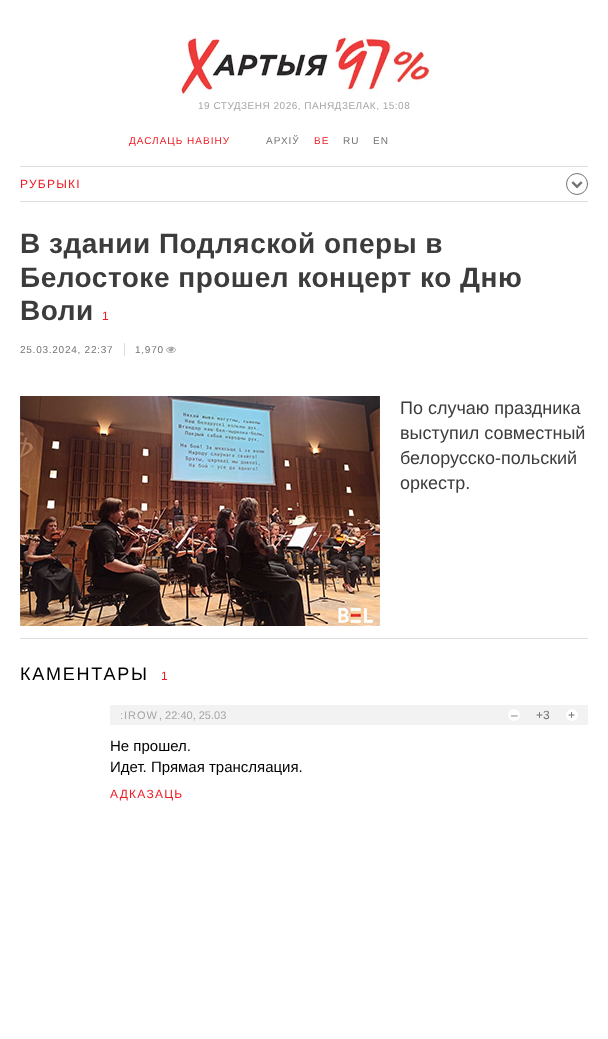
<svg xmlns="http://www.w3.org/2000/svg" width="608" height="1039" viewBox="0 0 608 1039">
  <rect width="100%" height="100%" fill="rgb(255,255,255)"/>
  <image x="179" y="36" width="253" height="61" href="pic1.png"/>
  <text x="198" y="109" font-family="Liberation Sans" font-size="10" letter-spacing="0.5" fill="rgb(166,166,166)">19 СТУДЗЕНЯ 2026, ПАНЯДЗЕЛАК, 15:08</text>
  <text x="129" y="144" font-family="Liberation Sans" font-size="10" letter-spacing="1" fill="rgb(237,28,36)">ДАСЛАЦЬ НАВІНУ</text>
  <text x="266" y="144" font-family="Liberation Sans" font-size="10" letter-spacing="1" fill="rgb(115,115,115)">АРХІЎ</text>
  <text x="314" y="144" font-family="Liberation Sans" font-size="10" letter-spacing="1" fill="rgb(237,28,36)">BE</text>
  <g font-family="Liberation Sans" font-size="10" letter-spacing="1" fill="rgb(115,115,115)">
    <text x="343" y="144">RU</text>
    <text x="373" y="144">EN</text>
  </g>
  <rect x="20" y="166" width="568" height="1" fill="rgb(220,220,220)"/>
  <rect x="20" y="201" width="568" height="1" fill="rgb(220,220,220)"/>
  <text x="20" y="188" font-family="Liberation Sans" font-size="12" letter-spacing="1.25" fill="rgb(237,28,36)">РУБРЫКІ</text>
  <circle cx="577" cy="184" r="10.5" fill="none" stroke="rgb(115,115,115)"/>
  <image x="571" y="181" width="12" height="8" href="pic2.png"/>
  <g font-family="Liberation Sans" font-size="28" font-weight="bold" letter-spacing="0.5" fill="rgb(60,60,60)">
    <text>
      <tspan x="20" y="253">В здании Подляской оперы в</tspan>
      <tspan x="20" y="287">Белостоке прошел концерт ко Дню</tspan>
      <tspan x="20" y="320">Воли</tspan>
    </text>
  </g>
  <text x="102" y="320" font-family="Liberation Sans" font-size="12" fill="rgb(237,28,36)">1</text>
  <rect x="124" y="343" width="1" height="13" fill="rgb(220,220,220)"/>
  <g font-family="Liberation Sans" font-size="10" letter-spacing="0.75" fill="rgb(115,115,115)">
    <text x="20" y="353">25.03.2024, 22:37</text>
    <text x="135" y="353">1,970</text>
  </g>
  <image x="166" y="346" width="10" height="7" href="pic3.png"/>
  <image x="20" y="396" width="360" height="230" href="pic4.png"/>
  <g font-family="Liberation Sans" font-size="18" fill="rgb(60,60,60)">
    <text>
      <tspan x="400" y="414">По случаю праздника</tspan>
      <tspan x="400" y="439">выступил совместный</tspan>
      <tspan x="400" y="464">белорусско-польский</tspan>
      <tspan x="400" y="489">оркестр.</tspan>
    </text>
  </g>
  <rect x="20" y="638" width="568" height="1" fill="rgb(220,220,220)"/>
  <text x="20" y="680" font-family="Liberation Sans" font-size="18" letter-spacing="1.75" fill="rgb(0,0,0)">КАМЕНТАРЫ</text>
  <text x="161" y="680" font-family="Liberation Sans" font-size="12" letter-spacing="1.75" fill="rgb(237,28,36)">1</text>
  <rect x="110" y="705" width="478" height="20" fill="rgb(242,242,242)"/>
  <text x="120" y="719" font-family="Liberation Sans" font-size="11" letter-spacing="1" fill="rgb(166,166,166)">:IROW</text>
  <text x="159" y="719" font-family="Liberation Sans" font-size="11" fill="rgb(166,166,166)">, 22:40, 25.03</text>
  <circle cx="514" cy="715" r="6" fill="rgb(255,255,255)"/>
  <g font-family="Liberation Sans" font-size="12" fill="rgb(115,115,115)">
    <text x="511" y="719">–</text>
    <text x="536" y="719">+3</text>
  </g>
  <circle cx="572" cy="715" r="6" fill="rgb(255,255,255)"/>
  <text x="568" y="719" font-family="Liberation Sans" font-size="12" fill="rgb(115,115,115)">+</text>
  <g font-family="Liberation Sans" font-size="15" fill="rgb(0,0,0)">
    <text>
      <tspan x="110" y="751">Не прошел.</tspan>
      <tspan x="110" y="772">Идет. Прямая трансляация.</tspan>
    </text>
  </g>
  <text x="110" y="798" font-family="Liberation Sans" font-size="12" letter-spacing="1.25" fill="rgb(237,28,36)">АДКАЗАЦЬ</text>
</svg>
